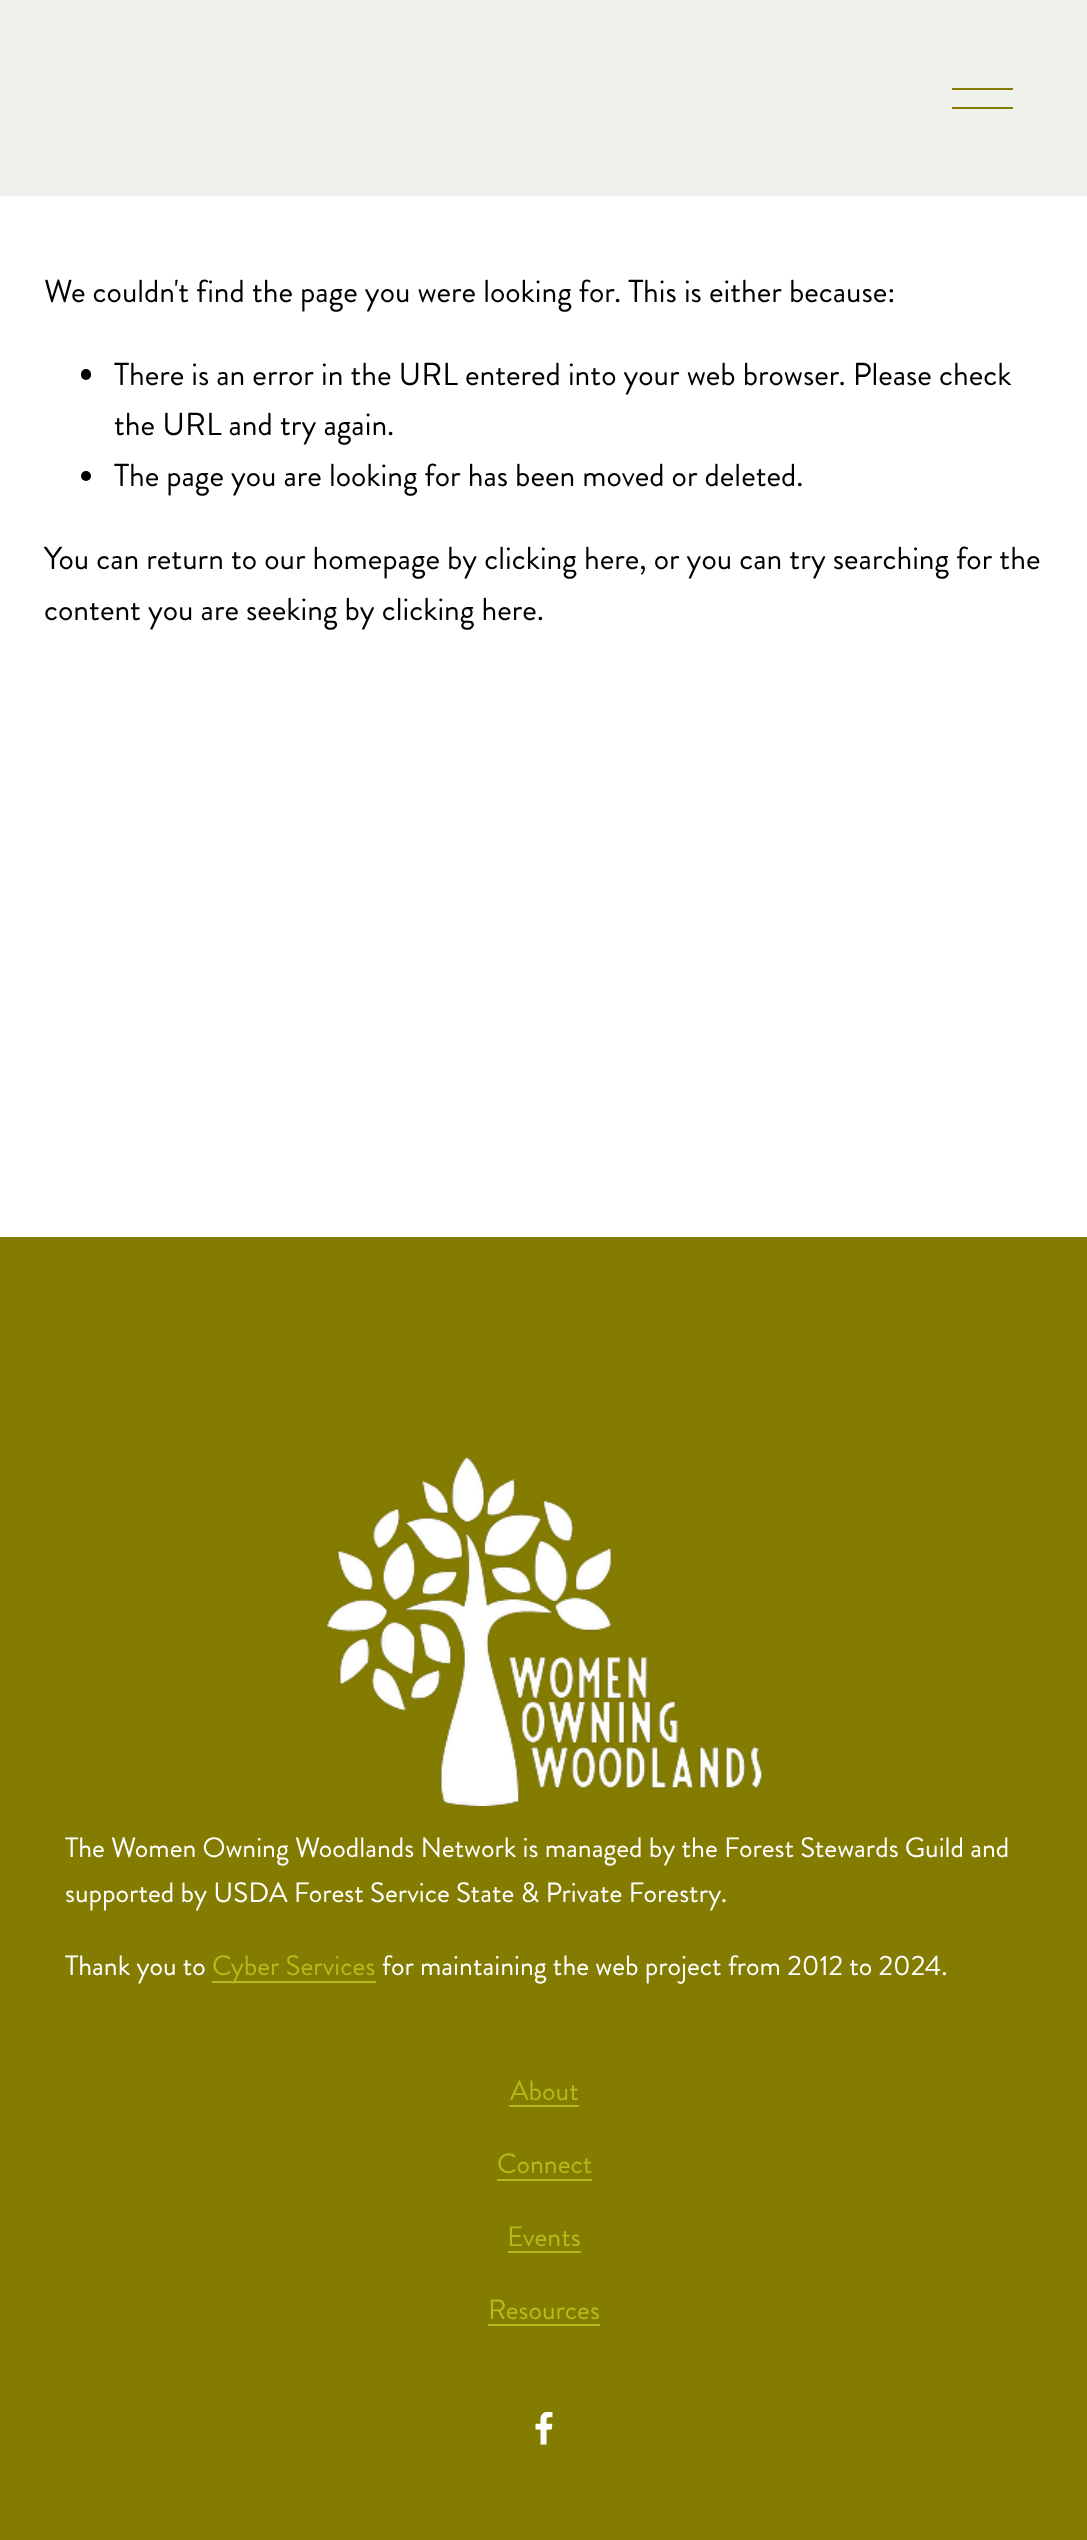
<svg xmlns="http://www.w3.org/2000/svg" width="1087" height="2540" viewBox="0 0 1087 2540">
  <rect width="100%" height="100%" fill="rgb(255,255,255)"/>
  <rect x="0" y="0" width="1087" height="196" fill="rgb(240,241,236)"/>
  <rect x="952" y="88" width="61" height="2" fill="rgb(132,124,0)"/>
  <rect x="952" y="107" width="61" height="2" fill="rgb(132,124,0)"/>
  <text x="44" y="302" font-family="Brandon Grotesque" font-size="31.75" fill="rgb(0,0,0)">We couldn't find the page you were looking for. This is either because:</text>
  <rect x="81" y="369" width="10" height="11" rx="5" fill="rgb(0,0,0)"/>
  <g font-family="Brandon Grotesque" font-size="31.75" fill="rgb(0,0,0)">
    <text>
      <tspan x="114" y="385">There is an error in the URL entered into your web browser. Please check</tspan>
      <tspan x="114" y="435">the URL and try again.</tspan>
    </text>
  </g>
  <circle cx="86" cy="476" r="5" fill="rgb(0,0,0)"/>
  <g font-family="Brandon Grotesque" font-size="31.75" fill="rgb(0,0,0)">
    <text x="114" y="486">The page you are looking for has been moved or deleted.</text>
    <text>
      <tspan x="44" y="569">You can return to our homepage by clicking here, or you can try searching for the</tspan>
      <tspan x="44" y="620">content you are seeking by clicking here.</tspan>
    </text>
  </g>
  <rect x="0" y="1237" width="1087" height="1303" fill="rgb(132,124,0)"/>
  <image x="327" y="1457" width="435" height="349" href="pic1.png"/>
  <g font-family="Brandon Grotesque" font-size="28" fill="rgb(255,255,255)">
    <text>
      <tspan x="65" y="1857">The Women Owning Woodlands Network is managed by the Forest Stewards Guild and</tspan>
      <tspan x="65" y="1902">supported by USDA Forest Service State &amp; Private Forestry.</tspan>
    </text>
    <text x="65" y="1975">Thank you to</text>
  </g>
  <rect x="212" y="1981" width="164" height="2" fill="rgb(179,187,26)"/>
  <text x="212" y="1975" font-family="Brandon Grotesque" font-size="28" fill="rgb(179,187,26)">Cyber Services</text>
  <text x="382" y="1975" font-family="Brandon Grotesque" font-size="28" fill="rgb(255,255,255)">for maintaining the web project from 2012 to 2024.</text>
  <text x="510" y="2100" font-family="Brandon Grotesque" font-size="28" fill="rgb(179,187,26)">About</text>
  <rect x="509" y="2105" width="70" height="2" fill="rgb(179,187,26)"/>
  <text x="497" y="2173" font-family="Brandon Grotesque" font-size="28" fill="rgb(179,187,26)">Connect</text>
  <rect x="497" y="2179" width="95" height="2" fill="rgb(179,187,26)"/>
  <text x="507" y="2246" font-family="Brandon Grotesque" font-size="28" fill="rgb(179,187,26)">Events</text>
  <rect x="508" y="2251" width="73" height="2" fill="rgb(179,187,26)"/>
  <text x="488" y="2319" font-family="Brandon Grotesque" font-size="28" fill="rgb(179,187,26)">Resources</text>
  <rect x="488" y="2324" width="112" height="2" fill="rgb(179,187,26)"/>
  <image x="535" y="2412" width="18" height="33" href="pic2.png"/>
</svg>
